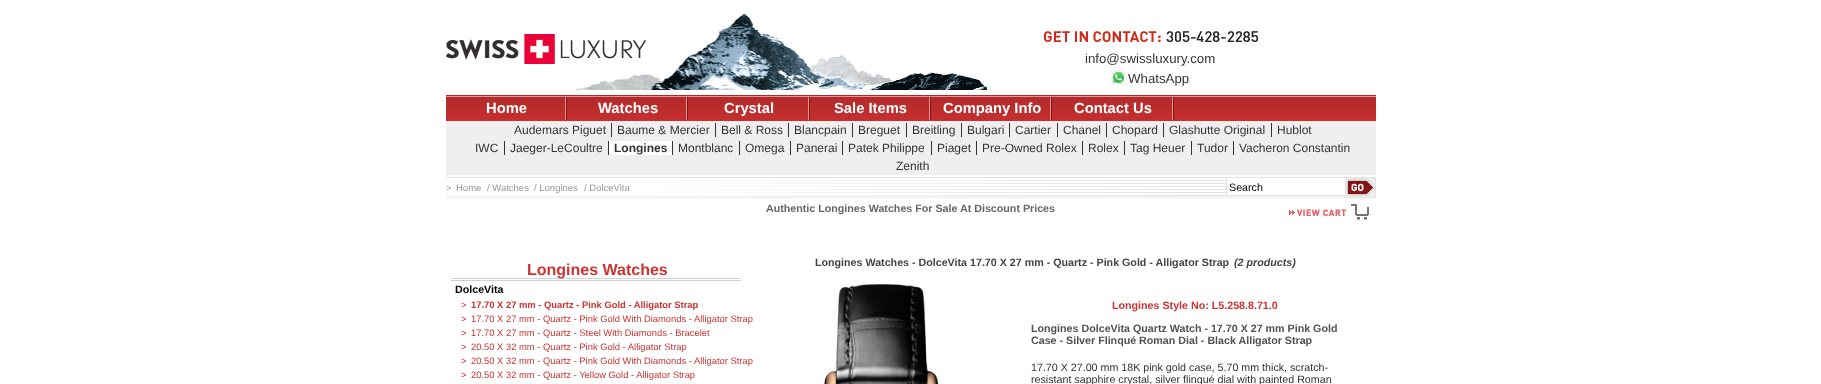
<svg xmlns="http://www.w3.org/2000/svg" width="1821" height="384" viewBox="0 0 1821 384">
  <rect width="100%" height="100%" fill="rgb(255,255,255)"/>
  <image x="576" y="13" width="411" height="77" href="pic1.png"/>
  <image x="446" y="34" width="200" height="30" href="pic2.png"/>
  <image x="1044" y="31" width="214" height="11" href="pic3.png"/>
  <text x="1085" y="63" font-family="Liberation Sans" font-size="13.25" fill="rgb(51,51,51)">info@swissluxury.com</text>
  <image x="1111" y="70" width="15" height="15" href="pic4.png"/>
  <text x="1128" y="83" font-family="Liberation Sans" font-size="13.25" fill="rgb(51,51,51)">WhatsApp</text>
  <rect x="446" y="95" width="930" height="1" fill="rgb(175,41,41)"/>
  <image x="446" y="96" width="930" height="25" href="pic5.png"/>
  <image x="565" y="97" width="2" height="23" href="pic6.png"/>
  <text x="486" y="113" font-family="Liberation Sans" font-size="14.75" font-weight="bold" fill="rgb(255,255,255)">Home</text>
  <image x="686" y="97" width="2" height="23" href="pic6.png"/>
  <text x="598" y="113" font-family="Liberation Sans" font-size="14.75" font-weight="bold" fill="rgb(255,255,255)">Watches</text>
  <image x="808" y="97" width="2" height="23" href="pic6.png"/>
  <text x="724" y="113" font-family="Liberation Sans" font-size="14.75" font-weight="bold" fill="rgb(255,255,255)">Crystal</text>
  <image x="929" y="97" width="2" height="23" href="pic6.png"/>
  <text x="834" y="113" font-family="Liberation Sans" font-size="14.75" font-weight="bold" fill="rgb(255,255,255)">Sale Items</text>
  <image x="1050" y="97" width="2" height="23" href="pic6.png"/>
  <text x="943" y="113" font-family="Liberation Sans" font-size="14.75" font-weight="bold" fill="rgb(255,255,255)">Company Info</text>
  <image x="1172" y="97" width="2" height="23" href="pic6.png"/>
  <text x="1074" y="113" font-family="Liberation Sans" font-size="14.75" font-weight="bold" fill="rgb(255,255,255)">Contact Us</text>
  <rect x="446" y="121" width="930" height="54" fill="rgb(239,239,239)"/>
  <g font-family="Liberation Sans" font-size="12" fill="rgb(51,51,51)">
    <text x="514" y="134">Audemars Piguet</text>
    <text x="617" y="134">Baume &amp; Mercier</text>
  </g>
  <rect x="611" y="123" width="1" height="14" fill="rgb(51,51,51)"/>
  <text x="721" y="134" font-family="Liberation Sans" font-size="12" fill="rgb(51,51,51)">Bell &amp; Ross</text>
  <rect x="715" y="123" width="1" height="14" fill="rgb(51,51,51)"/>
  <text x="794" y="134" font-family="Liberation Sans" font-size="12" fill="rgb(51,51,51)">Blancpain</text>
  <rect x="788" y="123" width="1" height="14" fill="rgb(51,51,51)"/>
  <text x="858" y="134" font-family="Liberation Sans" font-size="12" fill="rgb(51,51,51)">Breguet</text>
  <rect x="852" y="123" width="1" height="14" fill="rgb(51,51,51)"/>
  <text x="912" y="134" font-family="Liberation Sans" font-size="12" fill="rgb(51,51,51)">Breitling</text>
  <rect x="906" y="123" width="1" height="14" fill="rgb(51,51,51)"/>
  <text x="967" y="134" font-family="Liberation Sans" font-size="12" fill="rgb(51,51,51)">Bulgari</text>
  <rect x="961" y="123" width="1" height="14" fill="rgb(51,51,51)"/>
  <text x="1015" y="134" font-family="Liberation Sans" font-size="12" fill="rgb(51,51,51)">Cartier</text>
  <rect x="1009" y="123" width="1" height="14" fill="rgb(51,51,51)"/>
  <text x="1063" y="134" font-family="Liberation Sans" font-size="12" fill="rgb(51,51,51)">Chanel</text>
  <rect x="1057" y="123" width="1" height="14" fill="rgb(51,51,51)"/>
  <text x="1112" y="134" font-family="Liberation Sans" font-size="12" fill="rgb(51,51,51)">Chopard</text>
  <rect x="1106" y="123" width="1" height="14" fill="rgb(51,51,51)"/>
  <text x="1169" y="134" font-family="Liberation Sans" font-size="12" fill="rgb(51,51,51)">Glashutte Original</text>
  <rect x="1163" y="123" width="1" height="14" fill="rgb(51,51,51)"/>
  <text x="1277" y="134" font-family="Liberation Sans" font-size="12" fill="rgb(51,51,51)">Hublot</text>
  <rect x="1271" y="123" width="1" height="14" fill="rgb(51,51,51)"/>
  <g font-family="Liberation Sans" font-size="12" fill="rgb(51,51,51)">
    <text x="475" y="152">IWC</text>
    <text x="510" y="152">Jaeger-LeCoultre</text>
  </g>
  <rect x="504" y="141" width="1" height="14" fill="rgb(51,51,51)"/>
  <rect x="609" y="141" width="63" height="14" fill="rgb(255,255,255)"/>
  <text x="614" y="152" font-family="Liberation Sans" font-size="12" font-weight="bold" fill="rgb(51,51,51)">Longines</text>
  <rect x="608" y="141" width="1" height="14" fill="rgb(51,51,51)"/>
  <text x="678" y="152" font-family="Liberation Sans" font-size="12" fill="rgb(51,51,51)">Montblanc</text>
  <rect x="672" y="141" width="1" height="14" fill="rgb(51,51,51)"/>
  <text x="745" y="152" font-family="Liberation Sans" font-size="12" fill="rgb(51,51,51)">Omega</text>
  <rect x="739" y="141" width="1" height="14" fill="rgb(51,51,51)"/>
  <text x="796" y="152" font-family="Liberation Sans" font-size="12" fill="rgb(51,51,51)">Panerai</text>
  <rect x="790" y="141" width="1" height="14" fill="rgb(51,51,51)"/>
  <text x="848" y="152" font-family="Liberation Sans" font-size="12" fill="rgb(51,51,51)">Patek Philippe</text>
  <rect x="842" y="141" width="1" height="14" fill="rgb(51,51,51)"/>
  <text x="937" y="152" font-family="Liberation Sans" font-size="12" fill="rgb(51,51,51)">Piaget</text>
  <rect x="931" y="141" width="1" height="14" fill="rgb(51,51,51)"/>
  <text x="982" y="152" font-family="Liberation Sans" font-size="12" fill="rgb(51,51,51)">Pre-Owned Rolex</text>
  <rect x="976" y="141" width="1" height="14" fill="rgb(51,51,51)"/>
  <text x="1088" y="152" font-family="Liberation Sans" font-size="12" fill="rgb(51,51,51)">Rolex</text>
  <rect x="1082" y="141" width="1" height="14" fill="rgb(51,51,51)"/>
  <text x="1130" y="152" font-family="Liberation Sans" font-size="12" fill="rgb(51,51,51)">Tag Heuer</text>
  <rect x="1124" y="141" width="1" height="14" fill="rgb(51,51,51)"/>
  <text x="1197" y="152" font-family="Liberation Sans" font-size="12" fill="rgb(51,51,51)">Tudor</text>
  <rect x="1191" y="141" width="1" height="14" fill="rgb(51,51,51)"/>
  <text x="1239" y="152" font-family="Liberation Sans" font-size="12" fill="rgb(51,51,51)">Vacheron Constantin</text>
  <rect x="1233" y="141" width="1" height="14" fill="rgb(51,51,51)"/>
  <text x="896" y="170" font-family="Liberation Sans" font-size="12" fill="rgb(51,51,51)">Zenith</text>
  <image x="446" y="177" width="930" height="22" href="pic7.png"/>
  <g font-family="Liberation Sans" font-size="9.5" fill="rgb(153,153,153)">
    <text x="446" y="191">&gt;</text>
    <text x="456" y="191">Home</text>
    <text x="487" y="191">/ Watches</text>
    <text x="534" y="191">/ Longines</text>
    <text x="584" y="191">/ DolceVita</text>
  </g>
  <rect x="1227" y="180" width="118" height="13" fill="rgb(255,255,255)"/>
  <rect x="1226.5" y="177.5" width="120" height="18" fill="none" stroke="rgb(226,226,226)"/>
  <text x="1229" y="191" font-family="Liberation Sans" font-size="10.7" fill="rgb(0,0,0)">Search</text>
  <image x="1346" y="178" width="29" height="19" href="pic8.png"/>
  <rect x="1345.5" y="177.5" width="30" height="20" fill="none" stroke="rgb(226,226,226)"/>
  <image x="1289" y="204" width="80" height="16" href="pic9.png"/>
  <text x="766" y="212" font-family="Liberation Sans" font-size="10.7" font-weight="bold" fill="rgb(102,102,102)">Authentic Longines Watches For Sale At Discount Prices</text>
  <rect x="451" y="278" width="290" height="1" fill="rgb(210,210,210)"/>
  <rect x="451" y="280" width="290" height="1" fill="rgb(210,210,210)"/>
  <text x="527" y="275" font-family="Liberation Sans" font-size="16" font-weight="bold" fill="rgb(204,51,51)">Longines Watches</text>
  <text x="455" y="293" font-family="Liberation Sans" font-size="10.7" font-weight="bold" fill="rgb(0,0,0)">DolceVita</text>
  <text x="461" y="308" font-family="Liberation Sans" font-size="9.4" fill="rgb(204,51,51)">&gt;</text>
  <text x="471" y="308" font-family="Liberation Sans" font-size="9.4" font-weight="bold" fill="rgb(204,51,51)">17.70 X 27 mm - Quartz - Pink Gold - Alligator Strap</text>
  <g font-family="Liberation Sans" font-size="9.4" fill="rgb(204,51,51)">
    <text x="461" y="322">&gt;</text>
    <text x="471" y="322">17.70 X 27 mm - Quartz - Pink Gold With Diamonds - Alligator Strap</text>
    <text x="461" y="336">&gt;</text>
    <text x="471" y="336">17.70 X 27 mm - Quartz - Steel With Diamonds - Bracelet</text>
    <text x="461" y="350">&gt;</text>
    <text x="471" y="350">20.50 X 32 mm - Quartz - Pink Gold - Alligator Strap</text>
    <text x="461" y="364">&gt;</text>
    <text x="471" y="364">20.50 X 32 mm - Quartz - Pink Gold With Diamonds - Alligator Strap</text>
    <text x="461" y="378">&gt;</text>
    <text x="471" y="378">20.50 X 32 mm - Quartz - Yellow Gold - Alligator Strap</text>
  </g>
  <text x="815" y="266" font-family="Liberation Sans" font-size="10.7" font-weight="bold" fill="rgb(68,68,68)">Longines Watches - DolceVita 17.70 X 27 mm - Quartz - Pink Gold - Alligator Strap</text>
  <text x="1234" y="266" font-family="Liberation Sans" font-size="10.7" font-weight="bold" font-style="italic" fill="rgb(68,68,68)">(2 products)</text>
  <image x="821" y="284" width="120" height="100" href="pic10.png"/>
  <text x="1112" y="309" font-family="Liberation Sans" font-size="10.7" font-weight="bold" fill="rgb(204,51,51)">Longines Style No: L5.258.8.71.0</text>
  <g font-family="Liberation Sans" font-size="10.7" font-weight="bold" fill="rgb(81,81,81)">
    <text>
      <tspan x="1031" y="332">Longines DolceVita Quartz Watch - 17.70 X 27 mm Pink Gold</tspan>
      <tspan x="1031" y="344">Case - Silver Flinqué Roman Dial - Black Alligator Strap</tspan>
    </text>
  </g>
  <g font-family="Liberation Sans" font-size="10.7" fill="rgb(51,51,51)">
    <text>
      <tspan x="1031" y="371">17.70 X 27.00 mm 18K pink gold case, 5.70 mm thick, scratch-</tspan>
      <tspan x="1031" y="383">resistant sapphire crystal, silver flinqué dial with painted Roman</tspan>
    </text>
  </g>
</svg>
